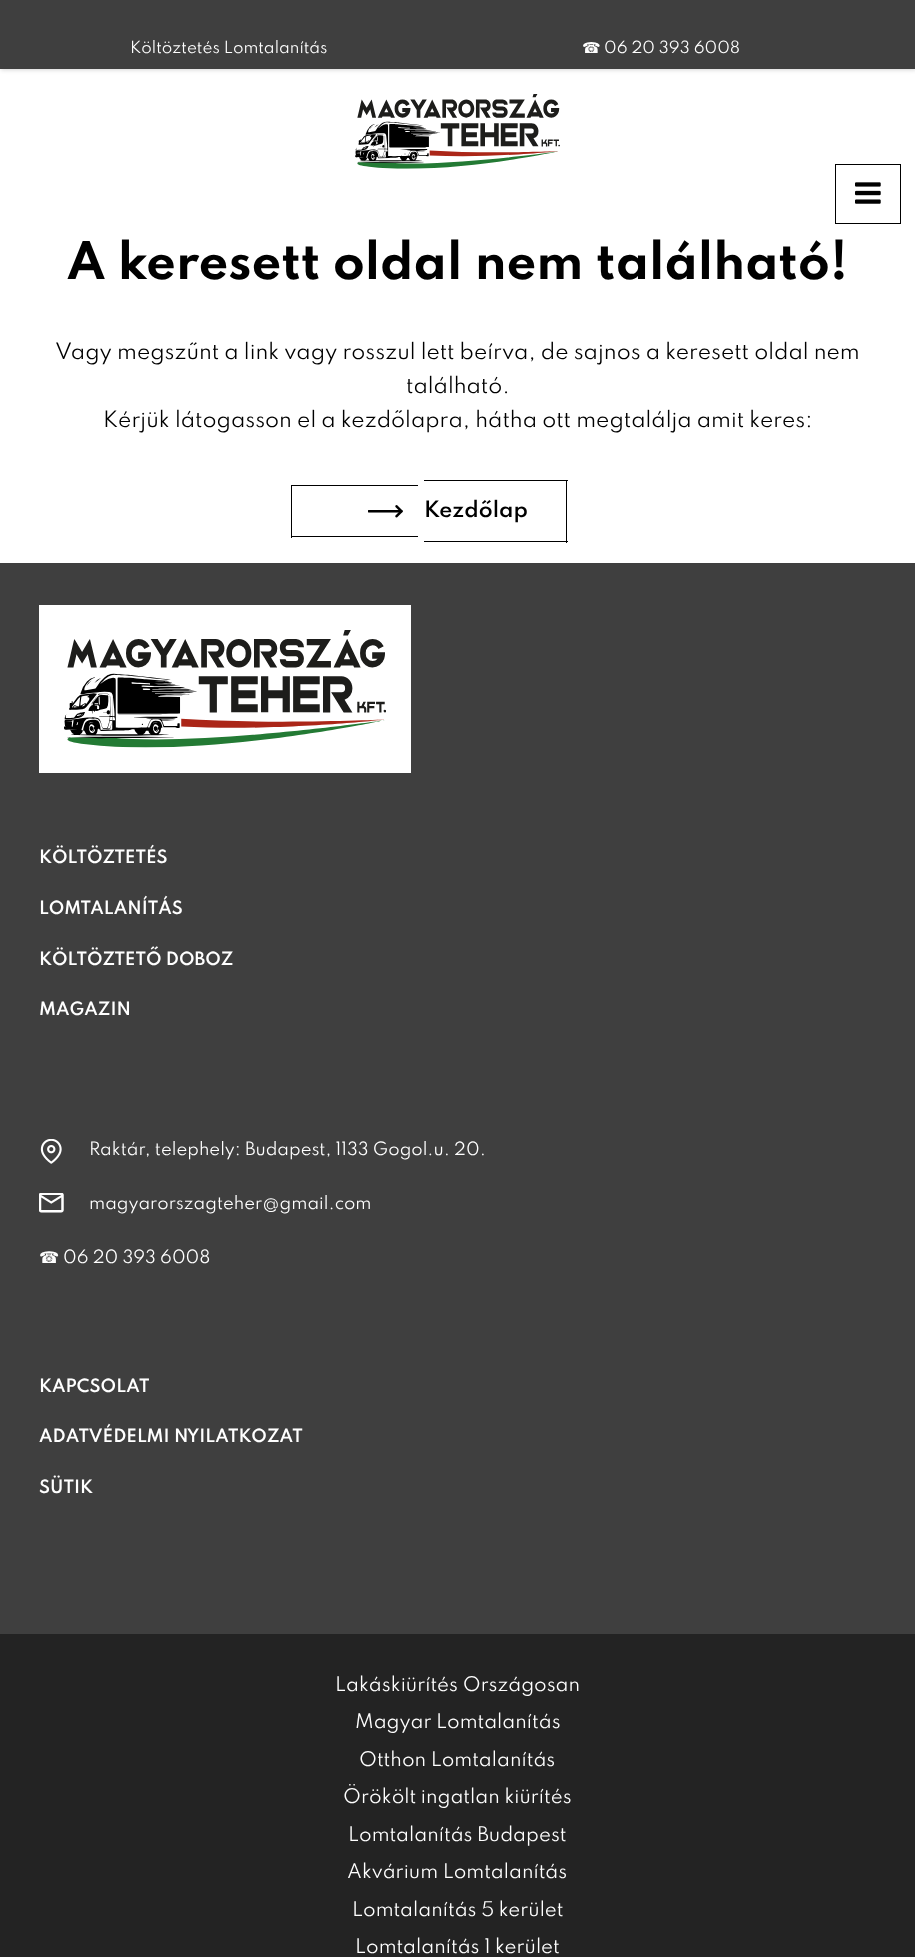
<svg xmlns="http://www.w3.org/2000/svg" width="915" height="1957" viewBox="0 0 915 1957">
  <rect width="100%" height="100%" fill="rgb(255,255,255)"/>
  <rect x="1" y="1" width="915" height="69" fill="rgba(0,0,0,0.16)" filter="blur(2px)"/>
  <rect x="0" y="0" width="915" height="69" fill="rgb(63,63,63)"/>
  <text x="130" y="53" font-family="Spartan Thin" font-size="15" fill="rgb(255,255,255)">Költöztetés Lomtalanítás</text>
  <text x="582" y="53" font-family="DejaVu Sans" font-size="15" fill="rgb(255,255,255)">☎</text>
  <text x="604" y="53" font-family="Spartan Thin" font-size="15" fill="rgb(255,255,255)">06 20 393 6008</text>
  <image x="355" y="94" width="205" height="75" href="pic1.png"/>
  <text x="67" y="279" font-family="Spartan Thin" font-size="46" font-weight="bold" fill="rgb(0,0,0)">A keresett oldal nem található!</text>
  <g font-family="Spartan Thin" font-size="20" fill="rgb(0,0,0)">
    <text x="55" y="359">Vagy megszűnt a link vagy rosszul lett beírva, de sajnos a keresett oldal nem</text>
    <text x="406" y="393">található.</text>
    <text x="103" y="427">Kérjük látogasson el a kezdőlapra, hátha ott megtalálja amit keres:</text>
  </g>
  <rect x="291" y="485" width="127" height="1" fill="rgb(0,0,0)"/>
  <rect x="291" y="536" width="127" height="1" fill="rgb(0,0,0)"/>
  <rect x="291" y="485" width="1" height="53" fill="rgb(0,0,0)"/>
  <rect x="424" y="480" width="144" height="1" fill="rgb(0,0,0)"/>
  <rect x="566" y="480" width="1" height="63" fill="rgb(0,0,0)"/>
  <rect x="424" y="541" width="144" height="1" fill="rgb(0,0,0)"/>
  <image x="368" y="505" width="35" height="13" href="pic2.png"/>
  <text x="424" y="517" font-family="Spartan Thin" font-size="20" font-weight="600" fill="rgb(0,0,0)">Kezdőlap</text>
  <rect x="835.5" y="164.5" width="65" height="59" fill="none" stroke="rgb(0,0,0)"/>
  <image x="855" y="182" width="26" height="22" href="pic3.png"/>
  <rect x="0" y="563" width="915" height="1071" fill="rgb(63,63,63)"/>
  <rect x="39" y="605" width="372" height="168" fill="rgb(255,255,255)"/>
  <image x="64" y="630" width="322" height="118" href="pic4.png"/>
  <g font-family="Spartan Thin" font-size="16.25" font-weight="600" fill="rgb(255,255,255)">
    <text x="39" y="863">KÖLTÖZTETÉS</text>
    <text x="39" y="914">LOMTALANÍTÁS</text>
    <text x="39" y="965">KÖLTÖZTETŐ DOBOZ</text>
    <text x="39" y="1015">MAGAZIN</text>
  </g>
  <image x="40" y="1139" width="22" height="25" href="pic5.png"/>
  <text x="89" y="1155" font-family="Spartan Thin" font-size="16.25" fill="rgb(255,255,255)">Raktár, telephely: Budapest, 1133 Gogol.u. 20.</text>
  <image x="39" y="1193" width="25" height="20" href="pic6.png"/>
  <text x="89" y="1209" font-family="Spartan Thin" font-size="16.25" fill="rgb(255,255,255)">magyarorszagteher@gmail.com</text>
  <text x="39" y="1263" font-family="DejaVu Sans" font-size="16.25" fill="rgb(255,255,255)">☎</text>
  <text x="63" y="1263" font-family="Spartan Thin" font-size="16.25" fill="rgb(255,255,255)">06 20 393 6008</text>
  <g font-family="Spartan Thin" font-size="16.25" font-weight="600" fill="rgb(255,255,255)">
    <text x="39" y="1392">KAPCSOLAT</text>
    <text x="39" y="1442">ADATVÉDELMI NYILATKOZAT</text>
    <text x="39" y="1493">SÜTIK</text>
  </g>
  <rect x="0" y="1634" width="915" height="323" fill="rgb(35,35,35)"/>
  <g font-family="Spartan Thin" font-size="18" fill="rgb(255,255,255)">
    <text x="335" y="1691">Lakáskiürítés Országosan</text>
    <text x="355" y="1728">Magyar Lomtalanítás</text>
    <text x="359" y="1766">Otthon Lomtalanítás</text>
    <text x="343" y="1803">Örökölt ingatlan kiürítés</text>
    <text x="348" y="1841">Lomtalanítás Budapest</text>
    <text x="347" y="1878">Akvárium Lomtalanítás</text>
    <text x="352" y="1916">Lomtalanítás 5 kerület</text>
    <text x="355" y="1953">Lomtalanítás 1 kerület</text>
  </g>
</svg>
